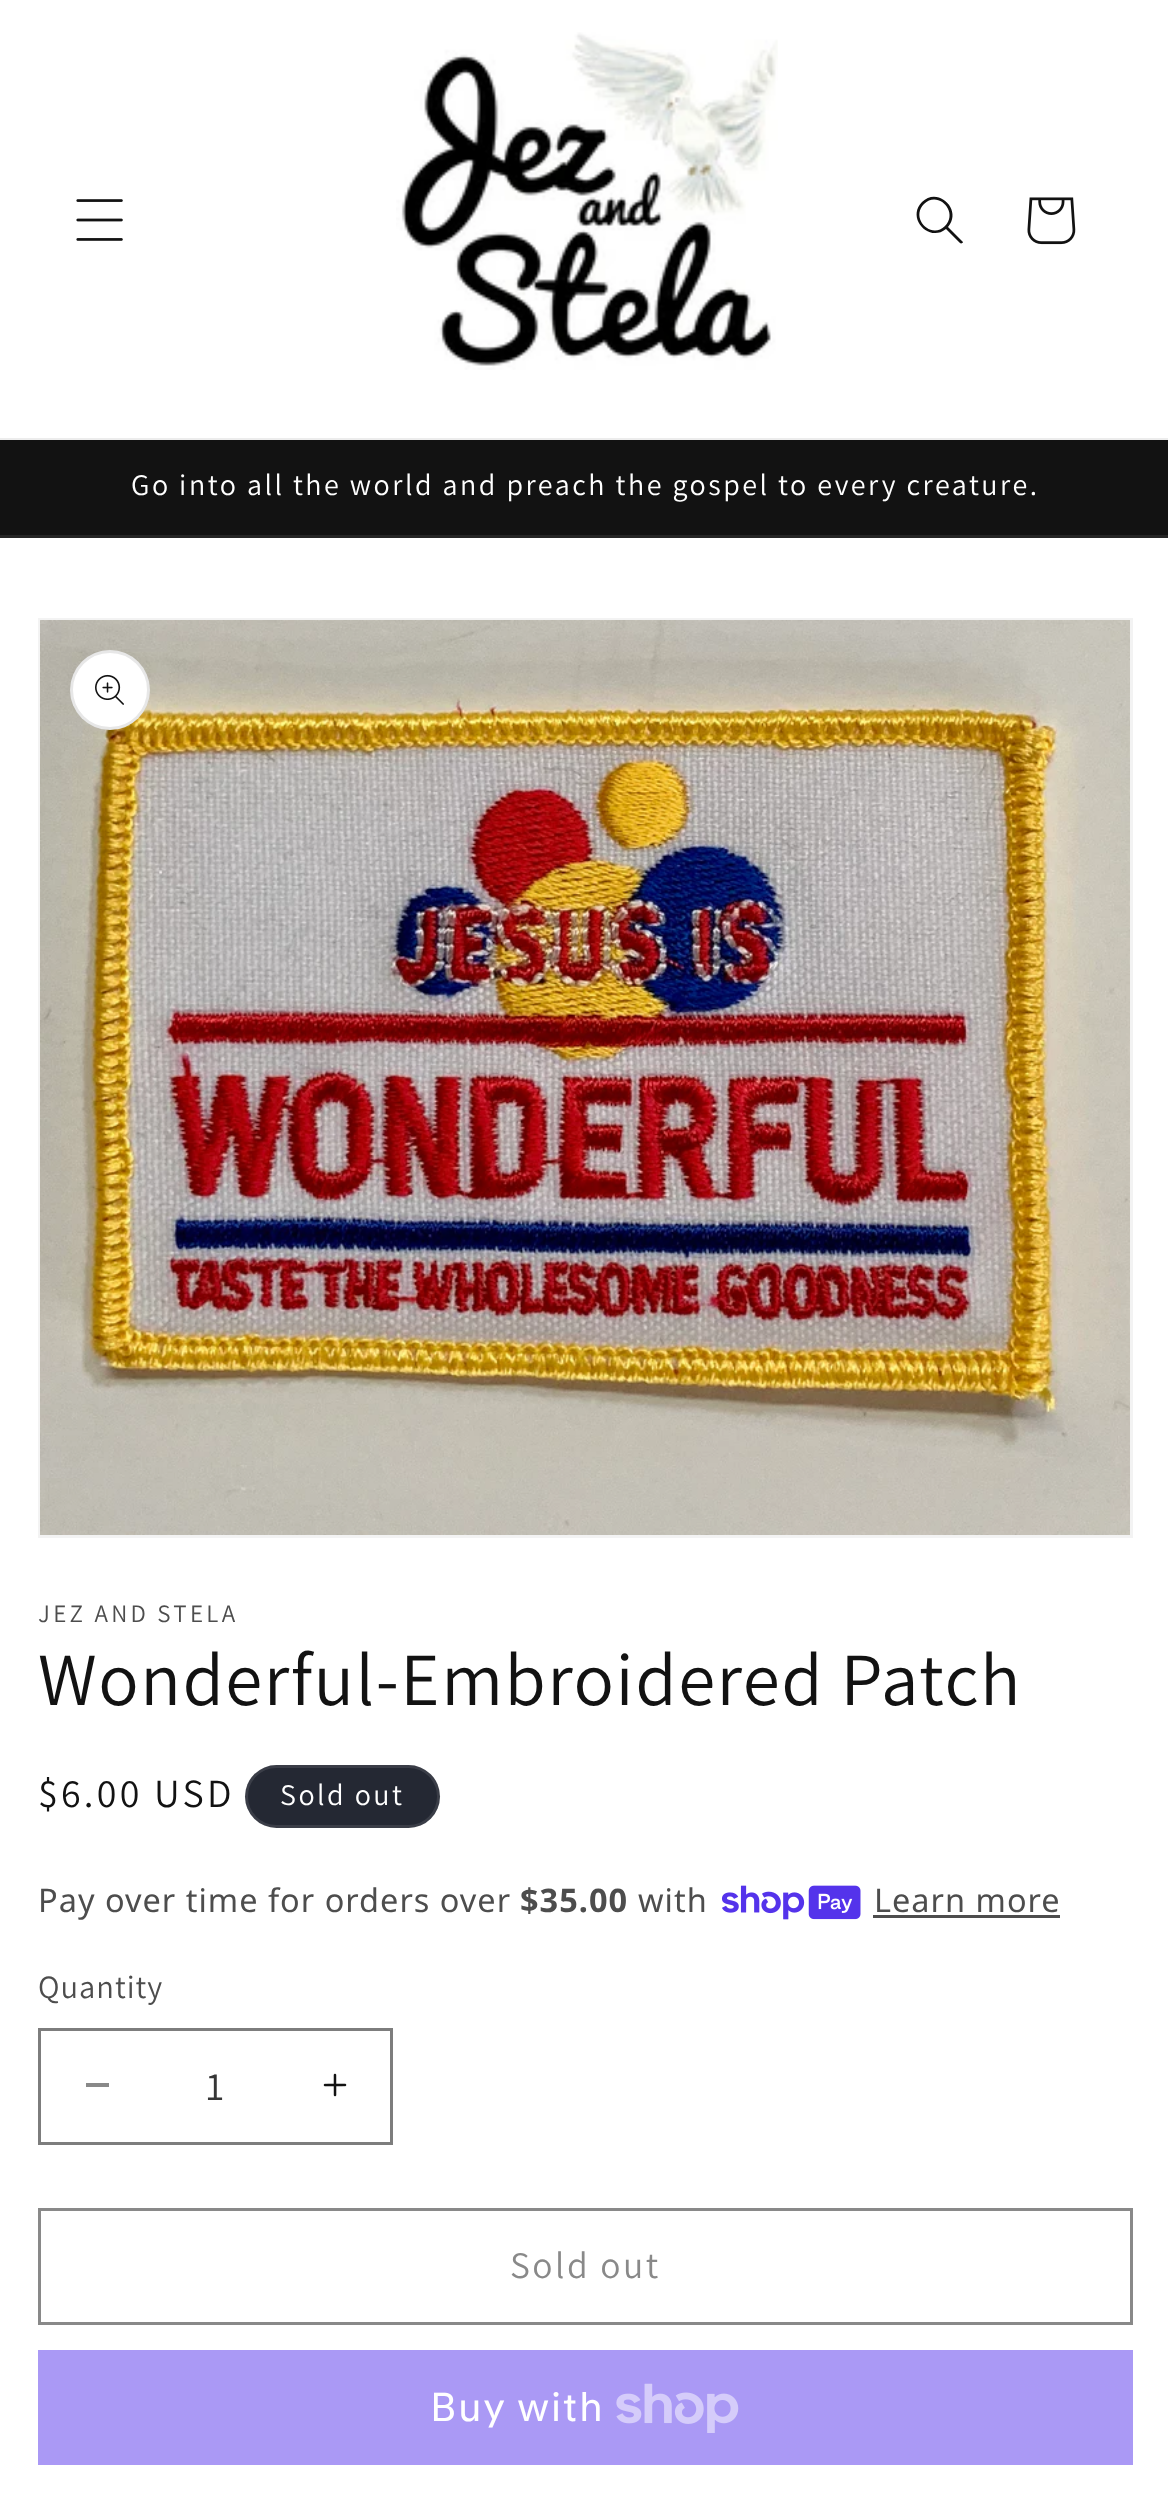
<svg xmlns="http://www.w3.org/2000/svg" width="1168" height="2503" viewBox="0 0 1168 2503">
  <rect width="100%" height="100%" fill="rgb(255,255,255)"/>
  <rect x="0" y="438" width="1168" height="2" fill="rgb(236,236,236)"/>
  <image x="76" y="199" width="47" height="42" href="pic1.png"/>
  <image x="396" y="32" width="382" height="338" href="pic2.png"/>
  <path d="M945 226C931 240 910 218 924 204C938 190 959 212 945 226M946 229C929 243 906 218 922 202C938 186 963 210 948 227L963 242C963 243 961 244 960 243Z" fill="rgb(18,18,18)" fill-rule="evenodd"/>
  <image x="1027" y="197" width="49" height="48" href="pic3.png"/>
  <rect x="0" y="440" width="1168" height="95" fill="rgb(18,18,18)"/>
  <rect x="0" y="535" width="1168" height="3" fill="rgb(37,37,37)"/>
  <text x="131" y="495" font-family="Assistant" font-size="30" letter-spacing="2.5" fill="rgb(255,255,255)">Go into all the world and preach the gospel to every creature.</text>
  <rect x="39.5" y="619.5" width="1092" height="917" fill="none" stroke="rgb(243,243,243)" stroke-width="3"/>
  <image x="40" y="620" width="1090" height="915" href="pic4.png"/>
  <circle cx="110" cy="690" r="40" fill="rgb(255,255,255)"/>
  <circle cx="110" cy="690" r="38.5" fill="none" stroke="rgba(18,18,18,0.1)" stroke-width="3"/>
  <image x="95" y="674" width="29" height="31" href="pic5.png"/>
  <text x="38" y="1622" font-family="Assistant" font-size="25" letter-spacing="3.25" fill="rgb(77,77,77)">JEZ AND STELA</text>
  <text x="38" y="1705" font-family="Assistant" font-size="75" letter-spacing="1.5" fill="rgb(18,18,18)">Wonderful-Embroidered Patch</text>
  <text x="38" y="1807" font-family="Assistant" font-size="40" letter-spacing="3.25" fill="rgb(18,18,18)">$6.00 USD</text>
  <rect x="245" y="1765" width="195" height="63" rx="31.5" fill="rgb(36,40,51)"/>
  <rect x="246.5" y="1766.5" width="192" height="60" rx="30" fill="none" stroke="rgba(255,255,255,0.1)" stroke-width="3"/>
  <text x="280" y="1805" font-family="Assistant" font-size="30" letter-spacing="2.5" fill="rgb(255,255,255)">Sold out</text>
  <text x="38" y="1912" font-family="Noto Sans" font-size="32.5" letter-spacing="1" fill="rgb(77,77,77)">Pay over time for orders over</text>
  <text x="520" y="1912" font-family="Noto Sans" font-size="32.5" font-weight="bold" letter-spacing="1" fill="rgb(77,77,77)">$35.00</text>
  <text x="638" y="1912" font-family="Noto Sans" font-size="32.5" letter-spacing="1" fill="rgb(77,77,77)">with</text>
  <image x="721" y="1885" width="140" height="35" href="pic6.png"/>
  <text x="874" y="1912" font-family="Noto Sans" font-size="32.5" letter-spacing="1" fill="rgb(77,77,77)">Learn more</text>
  <rect x="873" y="1915" width="187" height="3" fill="rgb(77,77,77)"/>
  <text x="38" y="1998" font-family="Assistant" font-size="32.5" letter-spacing="1" fill="rgb(77,77,77)">Quantity</text>
  <rect x="86" y="2083" width="23" height="4" fill="rgb(137,137,137)"/>
  <image x="323" y="2073" width="24" height="24" href="pic7.png"/>
  <rect x="39.5" y="2029.5" width="352" height="114" fill="none" stroke="rgb(125,125,125)" stroke-width="3"/>
  <text x="206" y="2100" font-family="Assistant" font-size="40" fill="rgb(54,54,54)">1</text>
  <rect x="39.5" y="2209.5" width="1092" height="114" fill="none" stroke="rgb(137,137,137)" stroke-width="3"/>
  <text x="510" y="2278" font-family="Assistant" font-size="37.5" letter-spacing="2.5" fill="rgb(137,137,137)">Sold out</text>
  <rect x="38" y="2350" width="1095" height="115" fill="rgb(170,153,245)"/>
  <text x="430" y="2421" font-family="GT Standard" font-size="40" letter-spacing="1.5" fill="rgb(255,255,255)">Buy with</text>
  <image x="616" y="2383" width="123" height="50" href="pic8.png"/>
</svg>
